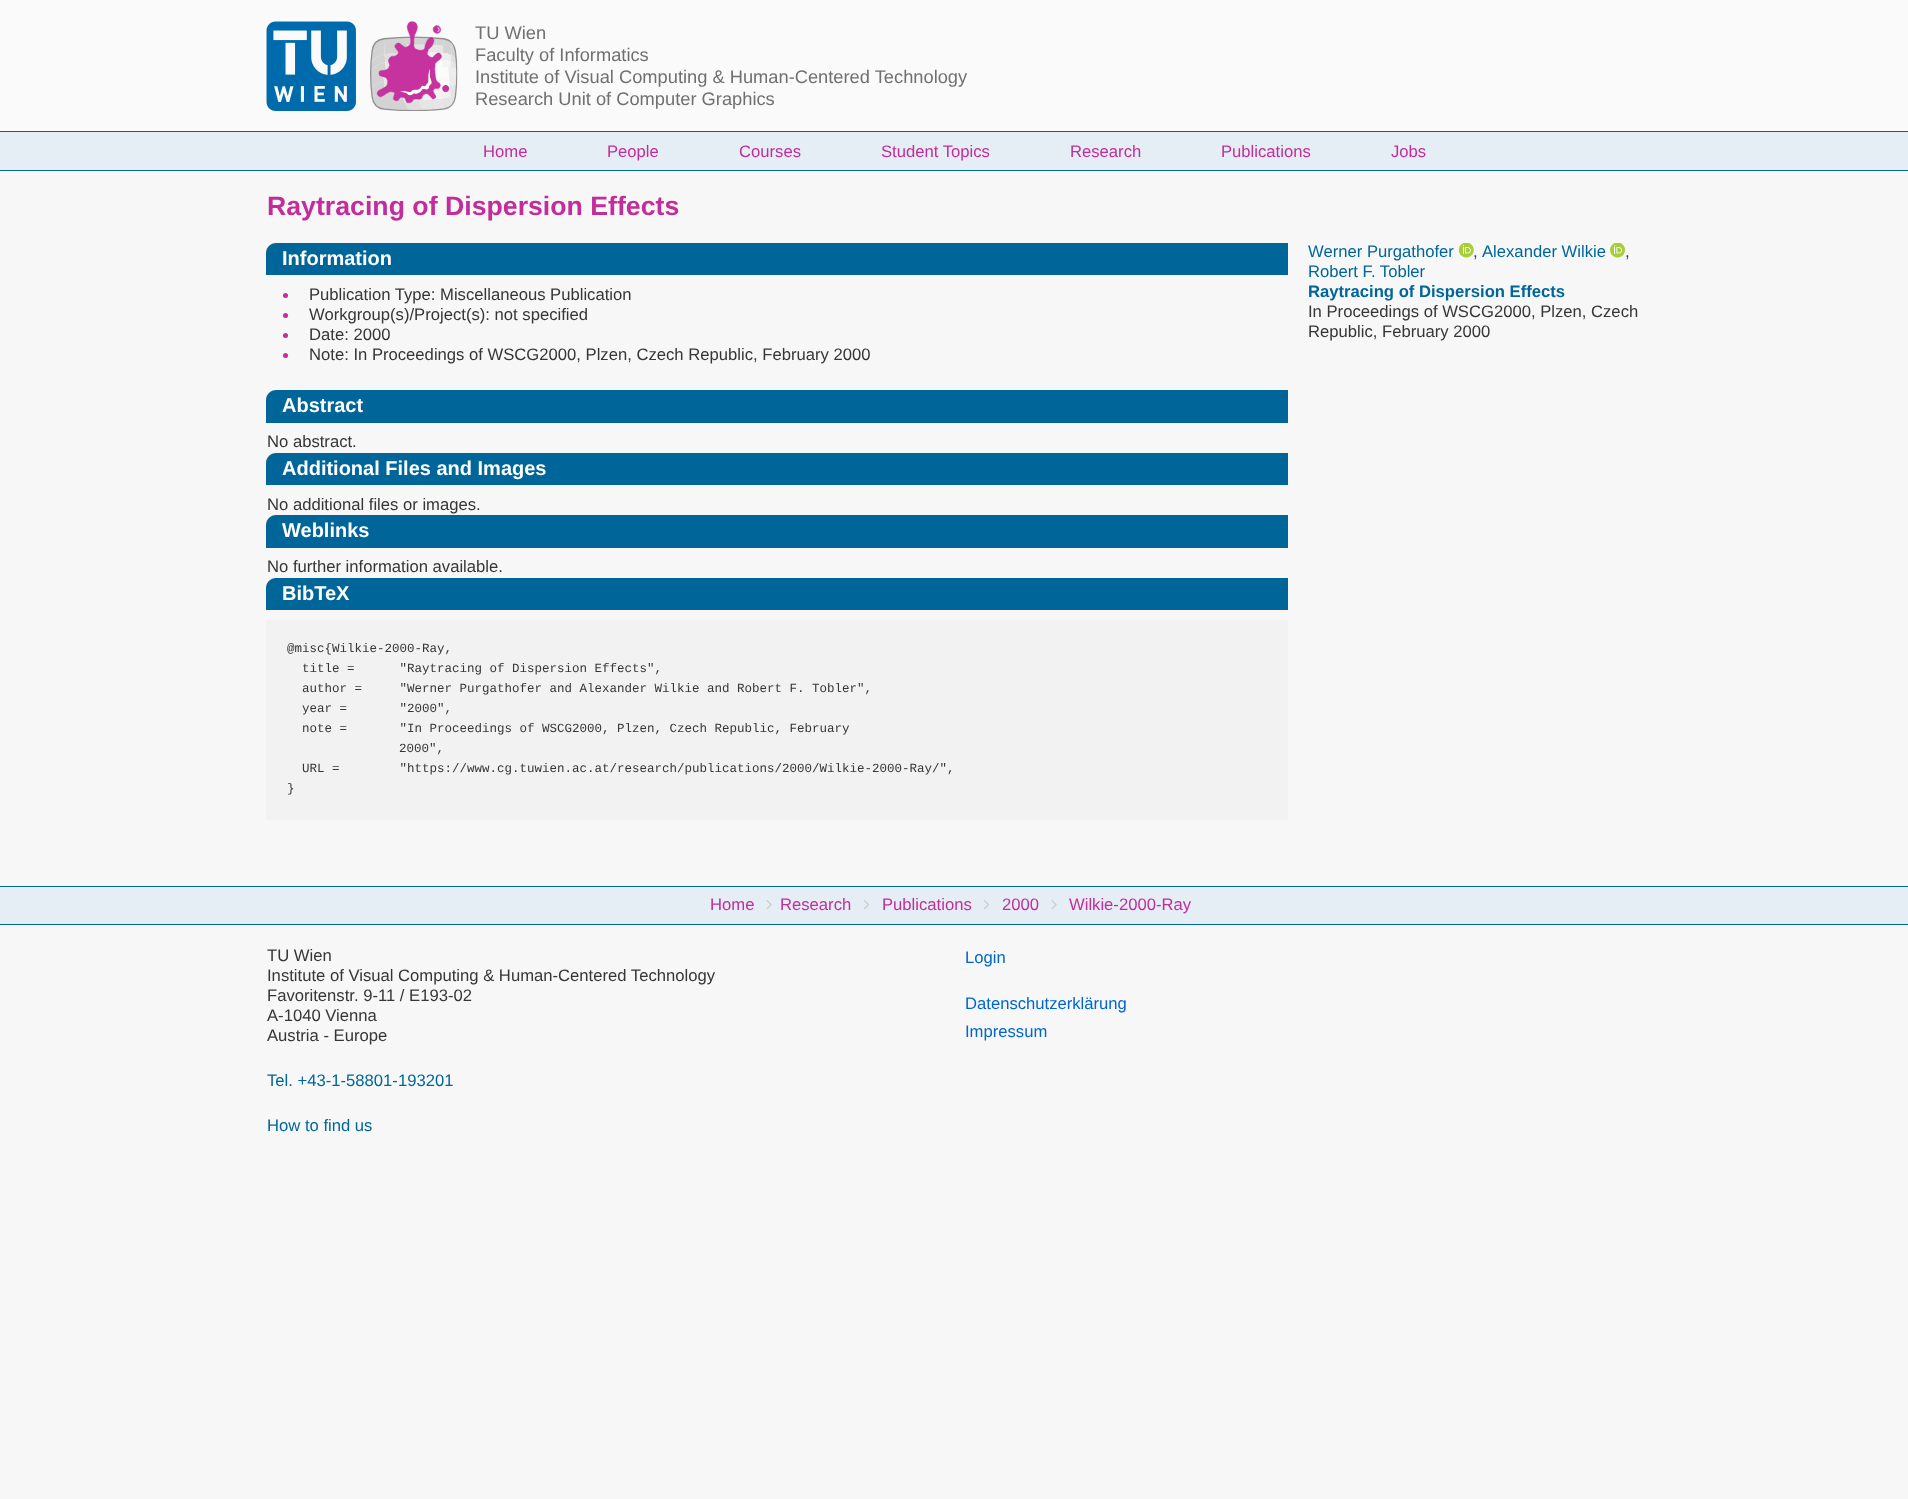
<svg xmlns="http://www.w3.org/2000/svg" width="1908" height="1499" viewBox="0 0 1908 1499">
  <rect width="100%" height="100%" fill="rgb(247,247,247)"/>
  <rect x="0" y="0" width="1908" height="131" fill="rgb(250,250,250)"/>
  <image x="266" y="21" width="90" height="90" href="pic1.png"/>
  <image x="370" y="21" width="88" height="90" href="pic2.png"/>
  <g font-family="Liberation Sans" font-size="18.3" fill="rgb(112,112,112)">
    <text>
      <tspan x="475" y="39">TU Wien</tspan>
      <tspan x="475" y="61">Faculty of Informatics</tspan>
      <tspan x="475" y="83">Institute of Visual Computing &amp; Human-Centered Technology</tspan>
      <tspan x="475" y="105">Research Unit of Computer Graphics</tspan>
    </text>
  </g>
  <rect x="0" y="132" width="1908" height="38" fill="rgb(228,238,244)"/>
  <rect x="0" y="131" width="1908" height="1" fill="rgb(0,102,153)"/>
  <rect x="0" y="170" width="1908" height="1" fill="rgb(0,102,153)"/>
  <g font-family="Liberation Sans" font-size="16.65" fill="rgb(195,45,155)">
    <text x="483" y="157">Home</text>
    <text x="607" y="157">People</text>
    <text x="739" y="157">Courses</text>
    <text x="881" y="157">Student Topics</text>
    <text x="1070" y="157">Research</text>
    <text x="1221" y="157">Publications</text>
    <text x="1391" y="157">Jobs</text>
  </g>
  <text x="267" y="215" font-family="Liberation Sans" font-size="26.7" font-weight="bold" fill="rgb(195,45,155)">Raytracing of Dispersion Effects</text>
  <path d="M276 243H1288V275H266V253C266 247.5 270.5 243 276 243Z" fill="rgb(0,102,153)"/>
  <text x="282" y="265" font-family="Liberation Sans" font-size="20" font-weight="bold" fill="rgb(255,255,255)">Information</text>
  <circle cx="285.5" cy="295.5" r="2.5" fill="rgb(195,45,155)"/>
  <text x="309" y="300" font-family="Liberation Sans" font-size="16.65" fill="rgb(54,54,54)">Publication Type: Miscellaneous Publication</text>
  <circle cx="285.5" cy="315.5" r="2.5" fill="rgb(195,45,155)"/>
  <text x="309" y="320" font-family="Liberation Sans" font-size="16.65" fill="rgb(54,54,54)">Workgroup(s)/Project(s): not specified</text>
  <circle cx="285.5" cy="335.5" r="2.5" fill="rgb(195,45,155)"/>
  <text x="309" y="340" font-family="Liberation Sans" font-size="16.65" fill="rgb(54,54,54)">Date: 2000</text>
  <circle cx="285.5" cy="355.5" r="2.5" fill="rgb(195,45,155)"/>
  <text x="309" y="360" font-family="Liberation Sans" font-size="16.65" fill="rgb(54,54,54)">Note: In Proceedings of WSCG2000, Plzen, Czech Republic, February 2000</text>
  <path d="M276 390H1288V423H266V400C266 394.5 270.5 390 276 390Z" fill="rgb(0,102,153)"/>
  <text x="282" y="412" font-family="Liberation Sans" font-size="20" font-weight="bold" fill="rgb(255,255,255)">Abstract</text>
  <text x="267" y="447" font-family="Liberation Sans" font-size="16.65" fill="rgb(54,54,54)">No abstract.</text>
  <path d="M276 453H1288V485H266V463C266 457.5 270.5 453 276 453Z" fill="rgb(0,102,153)"/>
  <text x="282" y="475" font-family="Liberation Sans" font-size="20" font-weight="bold" fill="rgb(255,255,255)">Additional Files and Images</text>
  <text x="267" y="510" font-family="Liberation Sans" font-size="16.65" fill="rgb(54,54,54)">No additional files or images.</text>
  <path d="M276 515H1288V548H266V525C266 519.5 270.5 515 276 515Z" fill="rgb(0,102,153)"/>
  <text x="282" y="537" font-family="Liberation Sans" font-size="20" font-weight="bold" fill="rgb(255,255,255)">Weblinks</text>
  <text x="267" y="572" font-family="Liberation Sans" font-size="16.65" fill="rgb(54,54,54)">No further information available.</text>
  <path d="M276 578H1288V610H266V588C266 582.5 270.5 578 276 578Z" fill="rgb(0,102,153)"/>
  <text x="282" y="600" font-family="Liberation Sans" font-size="20" font-weight="bold" fill="rgb(255,255,255)">BibTeX</text>
  <rect x="266" y="620" width="1022" height="200" fill="rgb(242,242,242)"/>
  <g font-family="Liberation Mono" font-size="12.5" fill="rgb(54,54,54)">
    <text x="287" y="652">@misc{Wilkie-2000-Ray,</text>
    <text xml:space="preserve"><tspan x="302" y="672">title =      "Raytracing of Dispersion Effects",</tspan><tspan x="302" y="692">author =     "Werner Purgathofer and Alexander Wilkie and Robert F. Tobler",</tspan><tspan x="302" y="712">year =       "2000",</tspan><tspan x="302" y="732">note =       "In Proceedings of WSCG2000, Plzen, Czech Republic, February</tspan></text>
    <text x="399" y="752">2000",</text>
    <text x="302" y="772" xml:space="preserve">URL =        "https://www.cg.tuwien.ac.at/research/publications/2000/Wilkie-2000-Ray/",</text>
    <text x="287" y="792">}</text>
  </g>
  <text x="1308" y="257" font-family="Liberation Sans" font-size="16.65" fill="rgb(0,102,153)">Werner Purgathofer</text>
  <image x="1459" y="243" width="15" height="15" href="pic3.png"/>
  <text x="1473" y="257" font-family="Liberation Sans" font-size="16.65" fill="rgb(54,54,54)">,</text>
  <text x="1482" y="257" font-family="Liberation Sans" font-size="16.65" fill="rgb(0,102,153)">Alexander Wilkie</text>
  <image x="1610" y="243" width="15" height="15" href="pic4.png"/>
  <text x="1625" y="257" font-family="Liberation Sans" font-size="16.65" fill="rgb(54,54,54)">,</text>
  <text x="1308" y="277" font-family="Liberation Sans" font-size="16.65" fill="rgb(0,102,153)">Robert F. Tobler</text>
  <text x="1308" y="297" font-family="Liberation Sans" font-size="16.65" font-weight="bold" fill="rgb(0,102,153)">Raytracing of Dispersion Effects</text>
  <g font-family="Liberation Sans" font-size="16.65" fill="rgb(54,54,54)">
    <text>
      <tspan x="1308" y="317">In Proceedings of WSCG2000, Plzen, Czech</tspan>
      <tspan x="1308" y="337">Republic, February 2000</tspan>
    </text>
  </g>
  <rect x="0" y="887" width="1908" height="37" fill="rgb(228,238,244)"/>
  <rect x="0" y="886" width="1908" height="1" fill="rgb(0,102,153)"/>
  <rect x="0" y="924" width="1908" height="1" fill="rgb(0,102,153)"/>
  <text x="710" y="910" font-family="Liberation Sans" font-size="16.65" fill="rgb(195,45,155)">Home</text>
  <image x="766" y="900" width="6" height="10" href="pic5.png"/>
  <text x="780" y="910" font-family="Liberation Sans" font-size="16.65" fill="rgb(195,45,155)">Research</text>
  <image x="864" y="900" width="6" height="10" href="pic6.png"/>
  <text x="882" y="910" font-family="Liberation Sans" font-size="16.65" fill="rgb(195,45,155)">Publications</text>
  <image x="984" y="900" width="6" height="10" href="pic6.png"/>
  <text x="1002" y="910" font-family="Liberation Sans" font-size="16.65" fill="rgb(195,45,155)">2000</text>
  <image x="1051" y="900" width="6" height="10" href="pic5.png"/>
  <text x="1069" y="910" font-family="Liberation Sans" font-size="16.65" fill="rgb(195,45,155)">Wilkie-2000-Ray</text>
  <g font-family="Liberation Sans" font-size="16.65" fill="rgb(54,54,54)">
    <text>
      <tspan x="267" y="961">TU Wien</tspan>
      <tspan x="267" y="981">Institute of Visual Computing &amp; Human-Centered Technology</tspan>
      <tspan x="267" y="1001">Favoritenstr. 9-11 / E193-02</tspan>
      <tspan x="267" y="1021">A-1040 Vienna</tspan>
      <tspan x="267" y="1041">Austria - Europe</tspan>
    </text>
  </g>
  <g font-family="Liberation Sans" font-size="16.65" fill="rgb(0,102,153)">
    <text x="267" y="1086">Tel. +43-1-58801-193201</text>
    <text x="267" y="1131">How to find us</text>
  </g>
  <g font-family="Liberation Sans" font-size="16.65" fill="rgb(0,102,204)">
    <text x="965" y="963">Login</text>
    <text>
      <tspan x="965" y="1009">Datenschutzerklärung</tspan>
      <tspan x="965" y="1037">Impressum</tspan>
    </text>
  </g>
</svg>
